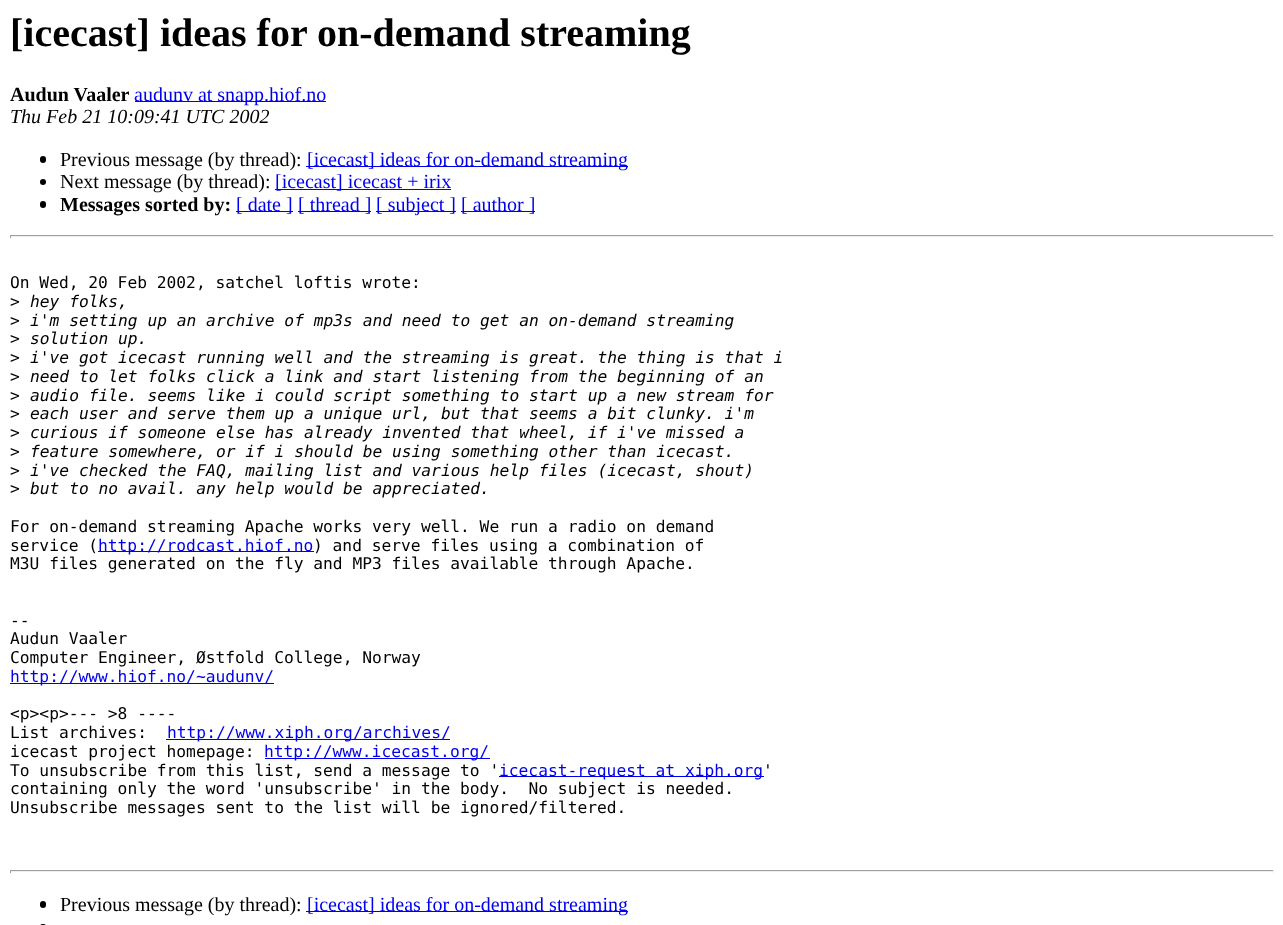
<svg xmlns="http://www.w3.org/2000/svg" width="1283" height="925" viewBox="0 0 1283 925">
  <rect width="100%" height="100%" fill="rgb(255,255,255)"/>
  <text x="10" y="46" font-family="Liberation Serif" font-size="40" font-weight="bold" fill="rgb(0,0,0)">[icecast] ideas for on-demand streaming</text>
  <text x="10" y="101" font-family="Liberation Serif" font-size="20" font-weight="bold" fill="rgb(0,0,0)">Audun Vaaler</text>
  <rect x="135" y="101" width="191" height="1" fill="rgb(0,0,238)"/>
  <text x="134" y="101" font-family="Liberation Serif" font-size="20" fill="rgb(0,0,238)">audunv at snapp.hiof.no</text>
  <text x="10" y="123" font-family="Liberation Serif" font-size="20" font-style="italic" fill="rgb(0,0,0)">Thu Feb 21 10:09:41 UTC 2002</text>
  <rect x="40" y="156" width="6" height="7" rx="3" fill="rgb(0,0,0)"/>
  <text x="60" y="166" font-family="Liberation Serif" font-size="20" fill="rgb(0,0,0)">Previous message (by thread):</text>
  <rect x="306" y="166" width="322" height="1" fill="rgb(0,0,238)"/>
  <text x="307" y="166" font-family="Liberation Serif" font-size="20" fill="rgb(0,0,238)">[icecast] ideas for on-demand streaming</text>
  <circle cx="43" cy="182" r="3" fill="rgb(0,0,0)"/>
  <text x="60" y="188" font-family="Liberation Serif" font-size="20" fill="rgb(0,0,0)">Next message (by thread):</text>
  <rect x="275" y="189" width="176" height="1" fill="rgb(0,0,238)"/>
  <text x="275" y="188" font-family="Liberation Serif" font-size="20" fill="rgb(0,0,238)">[icecast] icecast + irix</text>
  <rect x="40" y="201" width="6" height="7" rx="3" fill="rgb(0,0,0)"/>
  <text x="60" y="211" font-family="Liberation Serif" font-size="20" font-weight="bold" fill="rgb(0,0,0)">Messages sorted by:</text>
  <rect x="236" y="211" width="57" height="1" fill="rgb(0,0,238)"/>
  <text x="236" y="211" font-family="Liberation Serif" font-size="20" fill="rgb(0,0,238)">[ date ]</text>
  <rect x="298" y="211" width="73" height="1" fill="rgb(0,0,238)"/>
  <text x="298" y="211" font-family="Liberation Serif" font-size="20" fill="rgb(0,0,238)">[ thread ]</text>
  <rect x="376" y="211" width="80" height="1" fill="rgb(0,0,238)"/>
  <text x="376" y="211" font-family="Liberation Serif" font-size="20" fill="rgb(0,0,238)">[ subject ]</text>
  <rect x="461" y="211" width="74" height="1" fill="rgb(0,0,238)"/>
  <text x="461" y="211" font-family="Liberation Serif" font-size="20" fill="rgb(0,0,238)">[ author ]</text>
  <rect x="10" y="235" width="1264" height="1" fill="rgb(159,159,159)"/>
  <rect x="1273" y="235" width="1" height="3" fill="rgb(238,238,238)"/>
  <rect x="10" y="236" width="1264" height="1" fill="rgb(238,238,238)"/>
  <rect x="10" y="235" width="1" height="3" fill="rgb(159,159,159)"/>
  <g font-family="DejaVu Sans Mono" font-size="16.25" fill="rgb(0,0,0)">
    <text>
      <tspan x="10" y="288">On Wed, 20 Feb 2002, satchel loftis wrote:</tspan>
      <tspan x="10" y="307">&gt;</tspan>
    </text>
  </g>
  <text x="30" y="307" font-family="DejaVu Sans Mono" font-size="16.25" font-style="italic" fill="rgb(0,0,0)">hey folks,</text>
  <text x="10" y="326" font-family="DejaVu Sans Mono" font-size="16.25" fill="rgb(0,0,0)">&gt;</text>
  <text x="30" y="326" font-family="DejaVu Sans Mono" font-size="16.25" font-style="italic" fill="rgb(0,0,0)">i'm setting up an archive of mp3s and need to get an on-demand streaming</text>
  <text x="10" y="344" font-family="DejaVu Sans Mono" font-size="16.25" fill="rgb(0,0,0)">&gt;</text>
  <text x="30" y="344" font-family="DejaVu Sans Mono" font-size="16.25" font-style="italic" fill="rgb(0,0,0)">solution up.</text>
  <text x="10" y="363" font-family="DejaVu Sans Mono" font-size="16.25" fill="rgb(0,0,0)">&gt;</text>
  <text x="30" y="363" font-family="DejaVu Sans Mono" font-size="16.25" font-style="italic" fill="rgb(0,0,0)">i've got icecast running well and the streaming is great. the thing is that i</text>
  <text x="10" y="382" font-family="DejaVu Sans Mono" font-size="16.25" fill="rgb(0,0,0)">&gt;</text>
  <text x="30" y="382" font-family="DejaVu Sans Mono" font-size="16.25" font-style="italic" fill="rgb(0,0,0)">need to let folks click a link and start listening from the beginning of an</text>
  <text x="10" y="401" font-family="DejaVu Sans Mono" font-size="16.25" fill="rgb(0,0,0)">&gt;</text>
  <text x="30" y="401" font-family="DejaVu Sans Mono" font-size="16.25" font-style="italic" fill="rgb(0,0,0)">audio file. seems like i could script something to start up a new stream for</text>
  <text x="10" y="419" font-family="DejaVu Sans Mono" font-size="16.25" fill="rgb(0,0,0)">&gt;</text>
  <text x="30" y="419" font-family="DejaVu Sans Mono" font-size="16.25" font-style="italic" fill="rgb(0,0,0)">each user and serve them up a unique url, but that seems a bit clunky. i'm</text>
  <text x="10" y="438" font-family="DejaVu Sans Mono" font-size="16.25" fill="rgb(0,0,0)">&gt;</text>
  <text x="30" y="438" font-family="DejaVu Sans Mono" font-size="16.25" font-style="italic" fill="rgb(0,0,0)">curious if someone else has already invented that wheel, if i've missed a</text>
  <text x="10" y="457" font-family="DejaVu Sans Mono" font-size="16.25" fill="rgb(0,0,0)">&gt;</text>
  <text x="30" y="457" font-family="DejaVu Sans Mono" font-size="16.25" font-style="italic" fill="rgb(0,0,0)">feature somewhere, or if i should be using something other than icecast.</text>
  <text x="10" y="476" font-family="DejaVu Sans Mono" font-size="16.25" fill="rgb(0,0,0)">&gt;</text>
  <text x="30" y="476" font-family="DejaVu Sans Mono" font-size="16.25" font-style="italic" fill="rgb(0,0,0)">i've checked the FAQ, mailing list and various help files (icecast, shout)</text>
  <text x="10" y="494" font-family="DejaVu Sans Mono" font-size="16.25" fill="rgb(0,0,0)">&gt;</text>
  <text x="30" y="494" font-family="DejaVu Sans Mono" font-size="16.25" font-style="italic" fill="rgb(0,0,0)">but to no avail. any help would be appreciated.</text>
  <g font-family="DejaVu Sans Mono" font-size="16.25" fill="rgb(0,0,0)">
    <text>
      <tspan x="10" y="532">For on-demand streaming Apache works very well. We run a radio on demand</tspan>
      <tspan x="10" y="551">service (</tspan>
    </text>
  </g>
  <rect x="98" y="551" width="216" height="1" fill="rgb(0,0,238)"/>
  <text x="98" y="551" font-family="DejaVu Sans Mono" font-size="16.25" fill="rgb(0,0,238)">http://rodcast.hiof.no</text>
  <g font-family="DejaVu Sans Mono" font-size="16.25" fill="rgb(0,0,0)">
    <text x="313" y="551">) and serve files using a combination of</text>
    <text x="10" y="569">M3U files generated on the fly and MP3 files available through Apache.</text>
    <text>
      <tspan x="10" y="626">--</tspan>
      <tspan x="10" y="644">Audun Vaaler</tspan>
      <tspan x="10" y="663">Computer Engineer, Østfold College, Norway</tspan>
    </text>
  </g>
  <rect x="10" y="683" width="264" height="1" fill="rgb(0,0,238)"/>
  <text x="10" y="682" font-family="DejaVu Sans Mono" font-size="16.25" fill="rgb(0,0,238)">http://www.hiof.no/~audunv/</text>
  <g font-family="DejaVu Sans Mono" font-size="16.25" fill="rgb(0,0,0)">
    <text>
      <tspan x="10" y="719">&lt;p&gt;&lt;p&gt;--- &gt;8 ----</tspan>
      <tspan x="10" y="738">List archives:</tspan>
    </text>
  </g>
  <rect x="166" y="739" width="284" height="1" fill="rgb(0,0,238)"/>
  <text x="167" y="738" font-family="DejaVu Sans Mono" font-size="16.25" fill="rgb(0,0,238)">http://www.xiph.org/archives/</text>
  <text x="10" y="757" font-family="DejaVu Sans Mono" font-size="16.25" fill="rgb(0,0,0)">icecast project homepage:</text>
  <rect x="265" y="758" width="225" height="1" fill="rgb(0,0,238)"/>
  <text x="264" y="757" font-family="DejaVu Sans Mono" font-size="16.25" fill="rgb(0,0,238)">http://www.icecast.org/</text>
  <text x="10" y="776" font-family="DejaVu Sans Mono" font-size="16.25" fill="rgb(0,0,0)">To unsubscribe from this list, send a message to '</text>
  <rect x="499" y="776" width="265" height="1" fill="rgb(0,0,238)"/>
  <text x="499" y="776" font-family="DejaVu Sans Mono" font-size="16.25" fill="rgb(0,0,238)">icecast-request at xiph.org</text>
  <g font-family="DejaVu Sans Mono" font-size="16.25" fill="rgb(0,0,0)">
    <text x="763" y="776">'</text>
    <text xml:space="preserve"><tspan x="10" y="794">containing only the word 'unsubscribe' in the body.  No subject is needed.</tspan><tspan x="10" y="813">Unsubscribe messages sent to the list will be ignored/filtered.</tspan></text>
  </g>
  <rect x="10" y="870" width="1264" height="1" fill="rgb(159,159,159)"/>
  <rect x="1273" y="870" width="1" height="3" fill="rgb(238,238,238)"/>
  <rect x="10" y="871" width="1264" height="1" fill="rgb(238,238,238)"/>
  <rect x="10" y="870" width="1" height="3" fill="rgb(159,159,159)"/>
  <rect x="40" y="901" width="6" height="7" rx="3" fill="rgb(0,0,0)"/>
  <text x="60" y="911" font-family="Liberation Serif" font-size="20" fill="rgb(0,0,0)">Previous message (by thread):</text>
  <rect x="306" y="911" width="322" height="1" fill="rgb(0,0,238)"/>
  <text x="307" y="911" font-family="Liberation Serif" font-size="20" fill="rgb(0,0,238)">[icecast] ideas for on-demand streaming</text>
  <rect x="40" y="924" width="6" height="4" rx="3" fill="rgb(0,0,0)"/>
</svg>
